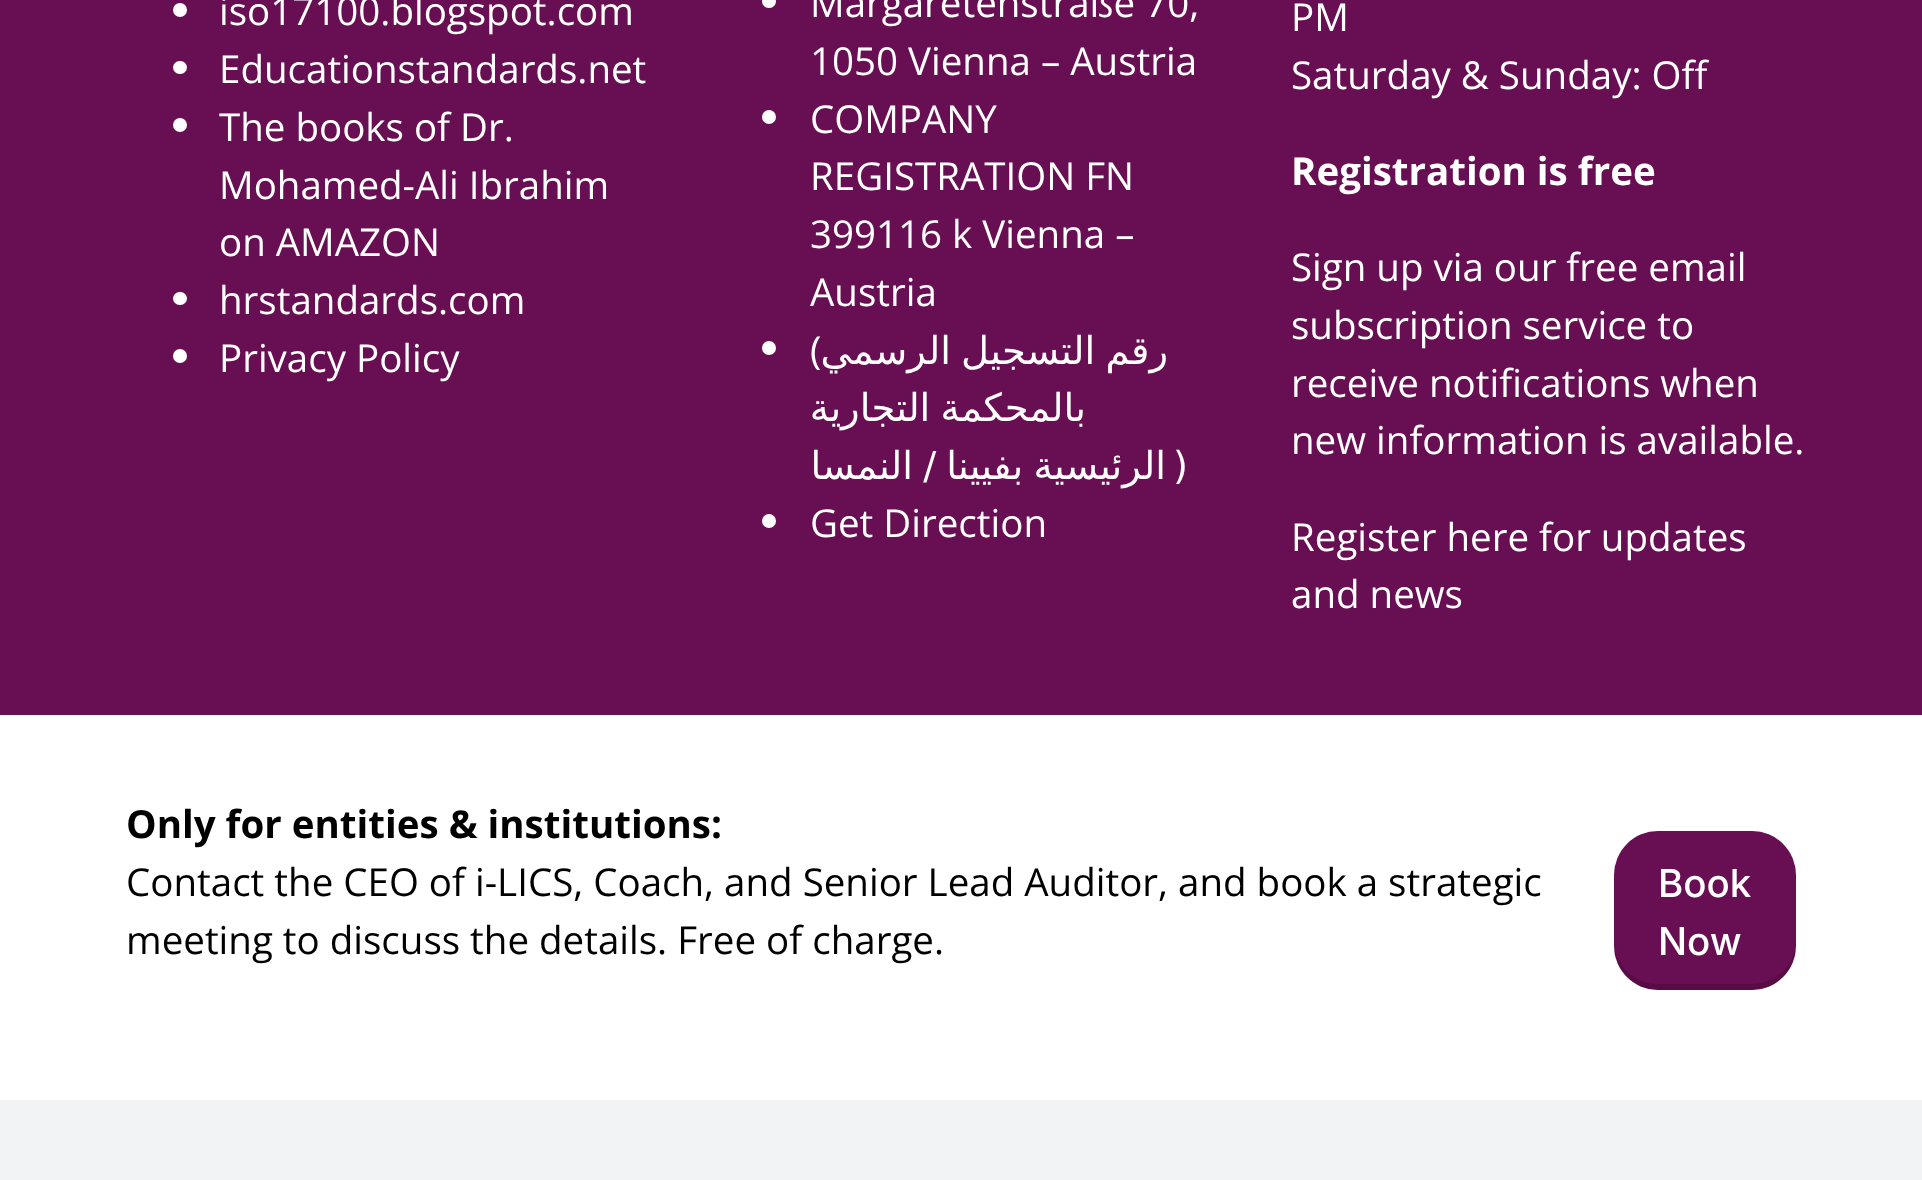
<svg xmlns="http://www.w3.org/2000/svg" width="1922" height="1180" viewBox="0 0 1922 1180">
  <rect width="100%" height="100%" fill="rgb(242,243,245)"/>
  <rect x="0" y="0" width="1922" height="715" fill="rgb(104,14,82)"/>
  <circle cx="180" cy="10" r="7" fill="rgb(255,255,255)"/>
  <text x="219" y="25" font-family="Open Sans" font-size="38.5" fill="rgb(255,255,255)">iso17100.blogspot.com</text>
  <rect x="173" y="61" width="14" height="13" rx="6.5" fill="rgb(255,255,255)"/>
  <text x="219" y="83" font-family="Open Sans" font-size="38.5" fill="rgb(255,255,255)">Educationstandards.net</text>
  <circle cx="180" cy="125" r="7" fill="rgb(255,255,255)"/>
  <g font-family="Open Sans" font-size="38.5" fill="rgb(255,255,255)">
    <text>
      <tspan x="219" y="141">The books of Dr.</tspan>
      <tspan x="219" y="199">Mohamed-Ali Ibrahim</tspan>
      <tspan x="219" y="256">on AMAZON</tspan>
    </text>
  </g>
  <rect x="173" y="292" width="14" height="13" rx="6.5" fill="rgb(255,255,255)"/>
  <text x="219" y="314" font-family="Open Sans" font-size="38.5" fill="rgb(255,255,255)">hrstandards.com</text>
  <circle cx="180" cy="356" r="7" fill="rgb(255,255,255)"/>
  <text x="219" y="372" font-family="Open Sans" font-size="38.5" fill="rgb(255,255,255)">Privacy Policy</text>
  <rect x="762" y="-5" width="14" height="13" rx="6.5" fill="rgb(255,255,255)"/>
  <g font-family="Open Sans" font-size="38.5" fill="rgb(255,255,255)">
    <text>
      <tspan x="810" y="17">Margaretenstraße 70,</tspan>
      <tspan x="810" y="75">1050 Vienna – Austria</tspan>
    </text>
  </g>
  <circle cx="769" cy="117" r="7" fill="rgb(255,255,255)"/>
  <g font-family="Open Sans" font-size="38.5" fill="rgb(255,255,255)">
    <text>
      <tspan x="810" y="133">COMPANY</tspan>
      <tspan x="810" y="190">REGISTRATION FN</tspan>
      <tspan x="810" y="248">399116 k Vienna –</tspan>
      <tspan x="810" y="306">Austria</tspan>
    </text>
  </g>
  <circle cx="769" cy="348" r="7" fill="rgb(255,255,255)"/>
  <text x="810" y="364" font-family="Open Sans" font-size="38.5" fill="rgb(255,255,255)">(</text>
  <g font-family="DejaVu Sans" font-size="38.5" direction="rtl" fill="rgb(255,255,255)">
    <text x="1168" y="364" word-spacing="-2">رقم التسجيل الرسمي</text>
    <text x="1086" y="421" word-spacing="-2">بالمحكمة التجارية</text>
    <text x="1166" y="479" word-spacing="-2">الرئيسية بفيينا / النمسا</text>
  </g>
  <text x="1173" y="479" font-family="DejaVu Sans" font-size="38.5" fill="rgb(255,255,255)">)</text>
  <circle cx="769" cy="521" r="7" fill="rgb(255,255,255)"/>
  <g font-family="Open Sans" font-size="38.5" fill="rgb(255,255,255)">
    <text x="810" y="537">Get Direction</text>
    <text>
      <tspan x="1291" y="31">PM</tspan>
      <tspan x="1291" y="89">Saturday &amp; Sunday: Off</tspan>
    </text>
  </g>
  <text x="1291" y="185" font-family="Open Sans" font-size="38.5" font-weight="bold" fill="rgb(255,255,255)">Registration is free</text>
  <g font-family="Open Sans" font-size="38.5" fill="rgb(255,255,255)">
    <text>
      <tspan x="1291" y="281">Sign up via our free email</tspan>
      <tspan x="1291" y="339">subscription service to</tspan>
      <tspan x="1291" y="397">receive notifications when</tspan>
      <tspan x="1291" y="454">new information is available.</tspan>
    </text>
    <text>
      <tspan x="1291" y="551">Register here for updates</tspan>
      <tspan x="1291" y="608">and news</tspan>
    </text>
  </g>
  <rect x="0" y="715" width="1922" height="385" fill="rgb(255,255,255)"/>
  <text x="126" y="838" font-family="Open Sans" font-size="38.5" font-weight="bold" fill="rgb(0,0,0)">Only for entities &amp; institutions:</text>
  <g font-family="Open Sans" font-size="38.5" fill="rgb(0,0,0)">
    <text>
      <tspan x="126" y="896">Contact the CEO of i-LICS, Coach, and Senior Lead Auditor, and book a strategic</tspan>
      <tspan x="126" y="954">meeting to discuss the details. Free of charge.</tspan>
    </text>
  </g>
  <rect x="1614" y="831" width="182" height="159" rx="44" fill="rgb(104,14,82)"/>
  <path d="M1614 940V946C1614 970 1634 990 1658 990H1752C1776 990 1796 970 1796 946V940C1796 965 1776 984 1752 984H1658C1634 984 1614 965 1614 940Z" fill="rgba(0,0,0,0.15)"/>
  <g font-family="Inter" font-size="38.5" font-weight="500" fill="rgb(255,255,255)">
    <text>
      <tspan x="1658" y="897">Book</tspan>
      <tspan x="1658" y="955">Now</tspan>
    </text>
  </g>
</svg>
